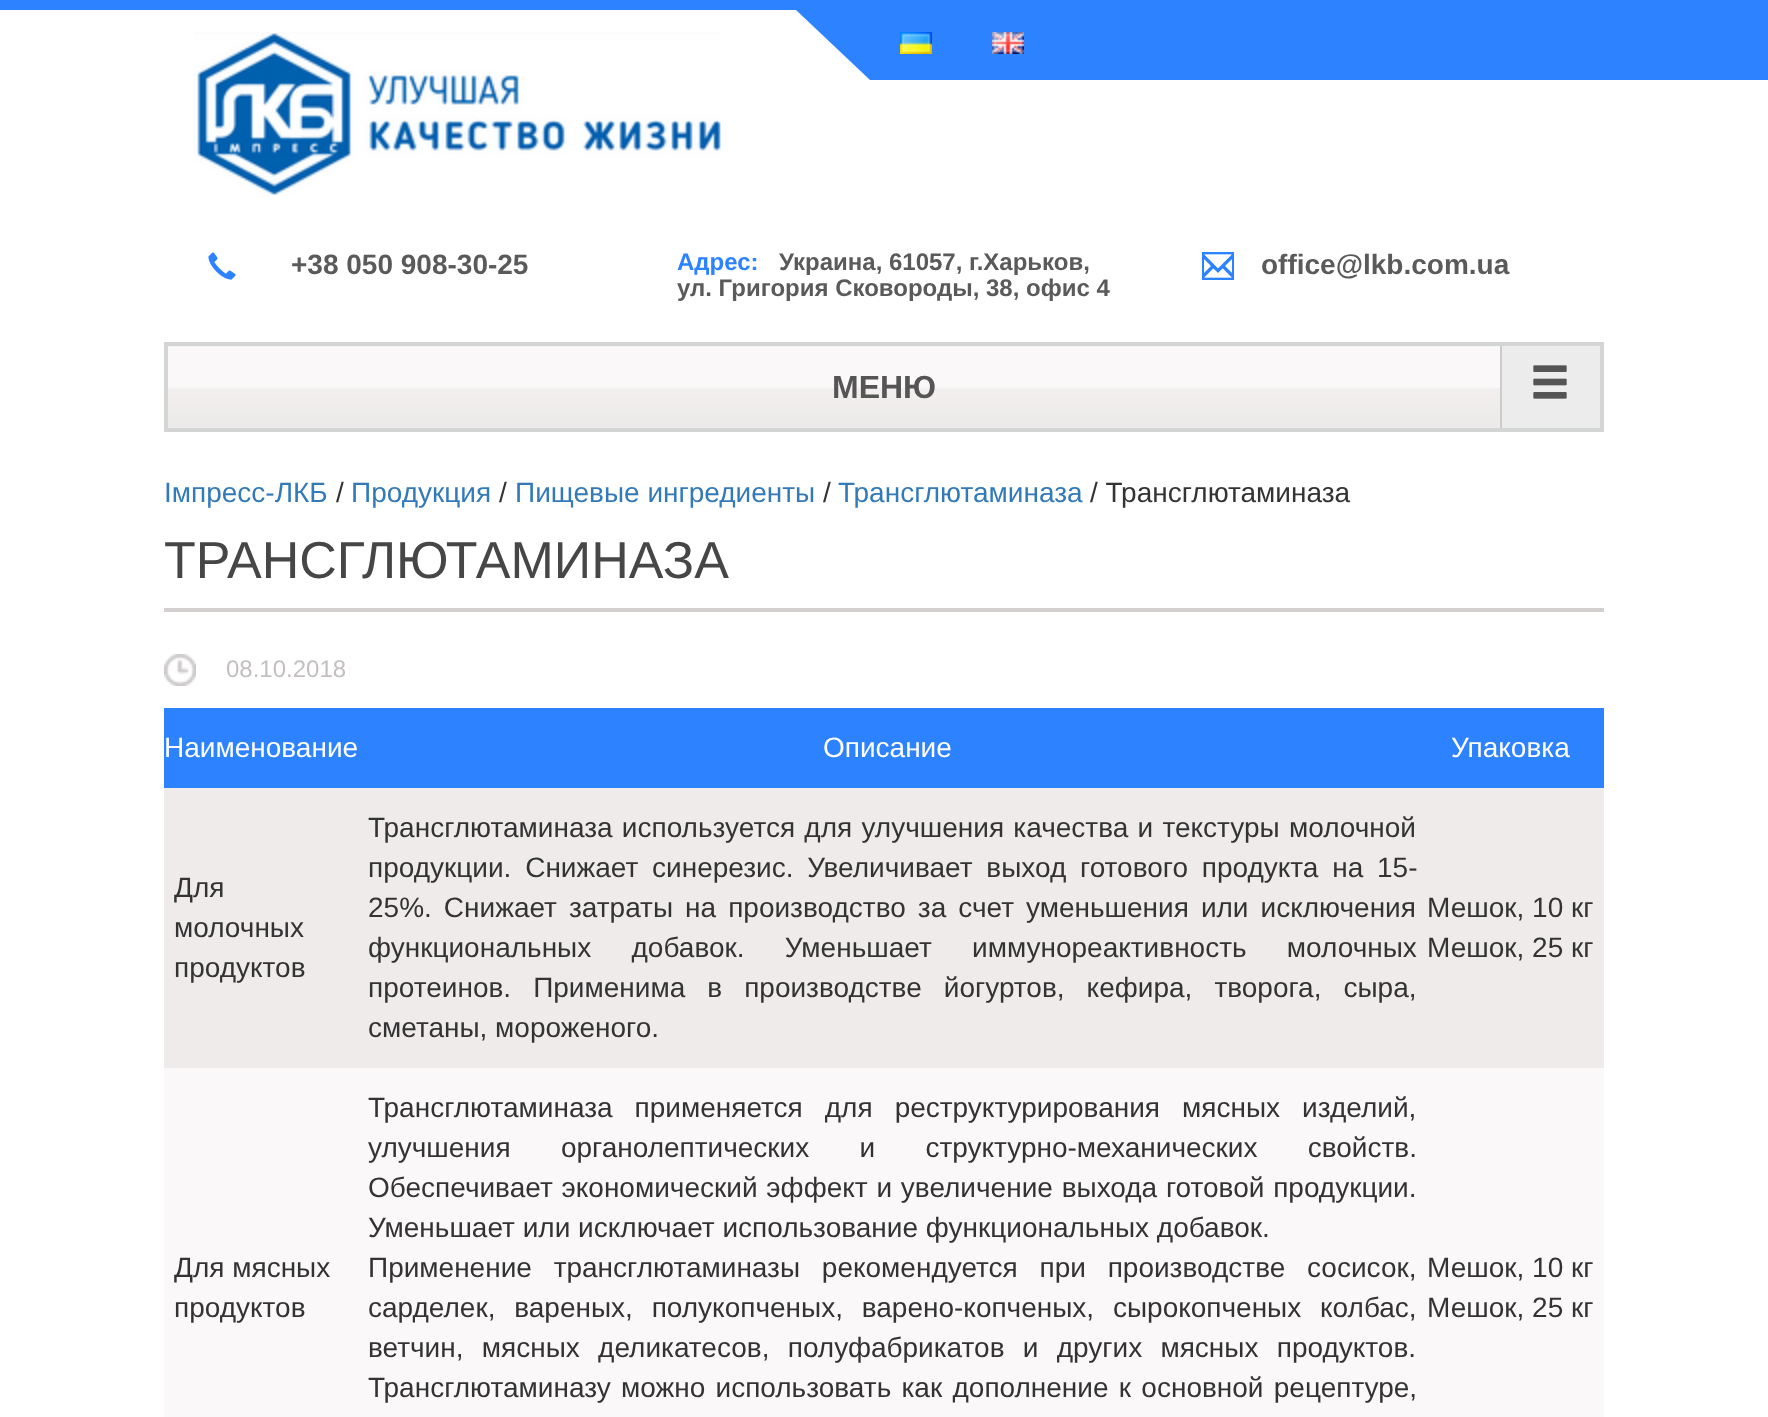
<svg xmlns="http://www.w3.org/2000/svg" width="1768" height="1417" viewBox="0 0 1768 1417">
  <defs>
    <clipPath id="clip1"><rect x="168" y="346" width="1432" height="82"/></clipPath>
  </defs>
  <rect width="100%" height="100%" fill="rgb(255,255,255)"/>
  <rect x="0" y="0" width="1768" height="10" fill="rgb(44,130,255)"/>
  <path d="M796 10H1768V80H870Z" fill="rgb(44,130,255)"/>
  <image x="900" y="32" width="32" height="22" href="pic1.png"/>
  <image x="992" y="32" width="32" height="22" href="pic2.png"/>
  <image x="194" y="32" width="527" height="164" href="pic3.png"/>
  <image x="208" y="252" width="28" height="28" href="pic4.png"/>
  <text x="291" y="274" font-family="Liberation Sans" font-size="28" font-weight="bold" fill="rgb(90,90,91)">+38 050 908-30-25</text>
  <text x="677" y="270" font-family="Liberation Sans" font-size="24" font-weight="bold" fill="rgb(44,130,255)">Адрес:</text>
  <g font-family="Liberation Sans" font-size="24" font-weight="bold" fill="rgb(90,90,91)">
    <text x="779" y="270">Украина, 61057, г.Харьков,</text>
    <text x="677" y="296">ул. Григория Сковороды, 38, офис 4</text>
  </g>
  <rect x="1202" y="252" width="32" height="28" fill="rgb(44,130,255)"/>
  <image x="1204" y="254" width="28" height="24" href="pic5.png"/>
  <text x="1261" y="274" font-family="Liberation Sans" font-size="28" font-weight="bold" fill="rgb(90,90,91)">office@lkb.com.ua</text>
  <image x="168" y="346" width="1332" height="82" href="pic6.png"/>
  <rect x="166" y="344" width="1436" height="86" fill="none" stroke="rgb(211,213,213)" stroke-width="4"/>
  <text x="832" y="398" font-family="Liberation Sans" font-size="32" font-weight="bold" fill="rgb(85,85,85)">МЕНЮ</text>
  <rect x="1502" y="346" width="98" height="82" fill="rgb(236,236,236)"/>
  <g clip-path="url(#clip1)">
    <rect x="1501" y="343" width="100" height="86" fill="none" stroke="rgb(204,204,204)" stroke-width="2"/>
  </g>
  <image x="1533" y="365" width="34" height="34" href="pic7.png"/>
  <text x="164" y="502" font-family="Liberation Sans" font-size="28" fill="rgb(51,122,183)">Імпресс-ЛКБ</text>
  <text x="336" y="502" font-family="Liberation Sans" font-size="28" fill="rgb(51,51,51)">/</text>
  <text x="351" y="502" font-family="Liberation Sans" font-size="28" fill="rgb(51,122,183)">Продукция</text>
  <text x="499" y="502" font-family="Liberation Sans" font-size="28" fill="rgb(51,51,51)">/</text>
  <text x="515" y="502" font-family="Liberation Sans" font-size="28" fill="rgb(51,122,183)">Пищевые ингредиенты</text>
  <text x="823" y="502" font-family="Liberation Sans" font-size="28" fill="rgb(51,51,51)">/</text>
  <text x="838" y="502" font-family="Liberation Sans" font-size="28" fill="rgb(51,122,183)">Трансглютаминаза</text>
  <text x="1090" y="502" font-family="Liberation Sans" font-size="28" fill="rgb(51,51,51)">/ Трансглютаминаза</text>
  <rect x="164" y="608" width="1440" height="4" fill="rgb(211,207,207)"/>
  <text x="164" y="578" font-family="Liberation Sans" font-size="52" fill="rgb(70,70,70)">ТРАНСГЛЮТАМИНАЗА</text>
  <image x="164" y="654" width="32" height="32" href="pic8.png"/>
  <text x="226" y="677" font-family="Liberation Sans" font-size="24" fill="rgb(195,191,191)">08.10.2018</text>
  <rect x="164" y="708" width="1440" height="80" fill="rgb(44,130,255)"/>
  <g font-family="Liberation Sans" font-size="28" fill="rgb(255,255,255)">
    <text x="164" y="757">Наименование</text>
    <text x="823" y="757">Описание</text>
    <text x="1451" y="757">Упаковка</text>
  </g>
  <rect x="164" y="788" width="1440" height="280" fill="rgb(239,235,235)"/>
  <g font-family="Liberation Sans" font-size="28" fill="rgb(51,51,51)">
    <text>
      <tspan x="174" y="897">Для</tspan>
      <tspan x="174" y="937">молочных</tspan>
      <tspan x="174" y="977">продуктов</tspan>
    </text>
    <text>
      <tspan x="368" y="837" word-spacing="1.5">Трансглютаминаза используется для улучшения качества и текстуры молочной</tspan>
      <tspan x="368" y="877" word-spacing="6">продукции. Снижает синерезис. Увеличивает выход готового продукта на 15-</tspan>
      <tspan x="368" y="917" word-spacing="4.25">25%. Снижает затраты на производство за счет уменьшения или исключения</tspan>
      <tspan x="368" y="957" word-spacing="32.5">функциональных добавок. Уменьшает иммунореактивность молочных</tspan>
      <tspan x="368" y="997" word-spacing="14.25">протеинов. Применима в производстве йогуртов, кефира, творога, сыра,</tspan>
      <tspan x="368" y="1037">сметаны, мороженого.</tspan>
    </text>
    <text>
      <tspan x="1427" y="917">Мешок, 10 кг</tspan>
      <tspan x="1427" y="957">Мешок, 25 кг</tspan>
    </text>
  </g>
  <rect x="164" y="1068" width="1440" height="349" fill="rgb(250,248,248)"/>
  <g font-family="Liberation Sans" font-size="28" fill="rgb(51,51,51)">
    <text>
      <tspan x="174" y="1277">Для мясных</tspan>
      <tspan x="174" y="1317">продуктов</tspan>
    </text>
    <text>
      <tspan x="368" y="1117" word-spacing="14.25">Трансглютаминаза применяется для реструктурирования мясных изделий,</tspan>
      <tspan x="368" y="1157" word-spacing="42.5">улучшения органолептических и структурно-механических свойств.</tspan>
      <tspan x="368" y="1197" word-spacing="1">Обеспечивает экономический эффект и увеличение выхода готовой продукции.</tspan>
      <tspan x="368" y="1237">Уменьшает или исключает использование функциональных добавок.</tspan>
      <tspan x="368" y="1277" word-spacing="14">Применение трансглютаминазы рекомендуется при производстве сосисок,</tspan>
      <tspan x="368" y="1317" word-spacing="11">сарделек, вареных, полукопченых, варено-копченых, сырокопченых колбас,</tspan>
      <tspan x="368" y="1357" word-spacing="10.5">ветчин, мясных деликатесов, полуфабрикатов и других мясных продуктов.</tspan>
      <tspan x="368" y="1397" word-spacing="2.5">Трансглютаминазу можно использовать как дополнение к основной рецептуре,</tspan>
    </text>
    <text>
      <tspan x="1427" y="1277">Мешок, 10 кг</tspan>
      <tspan x="1427" y="1317">Мешок, 25 кг</tspan>
    </text>
  </g>
</svg>
